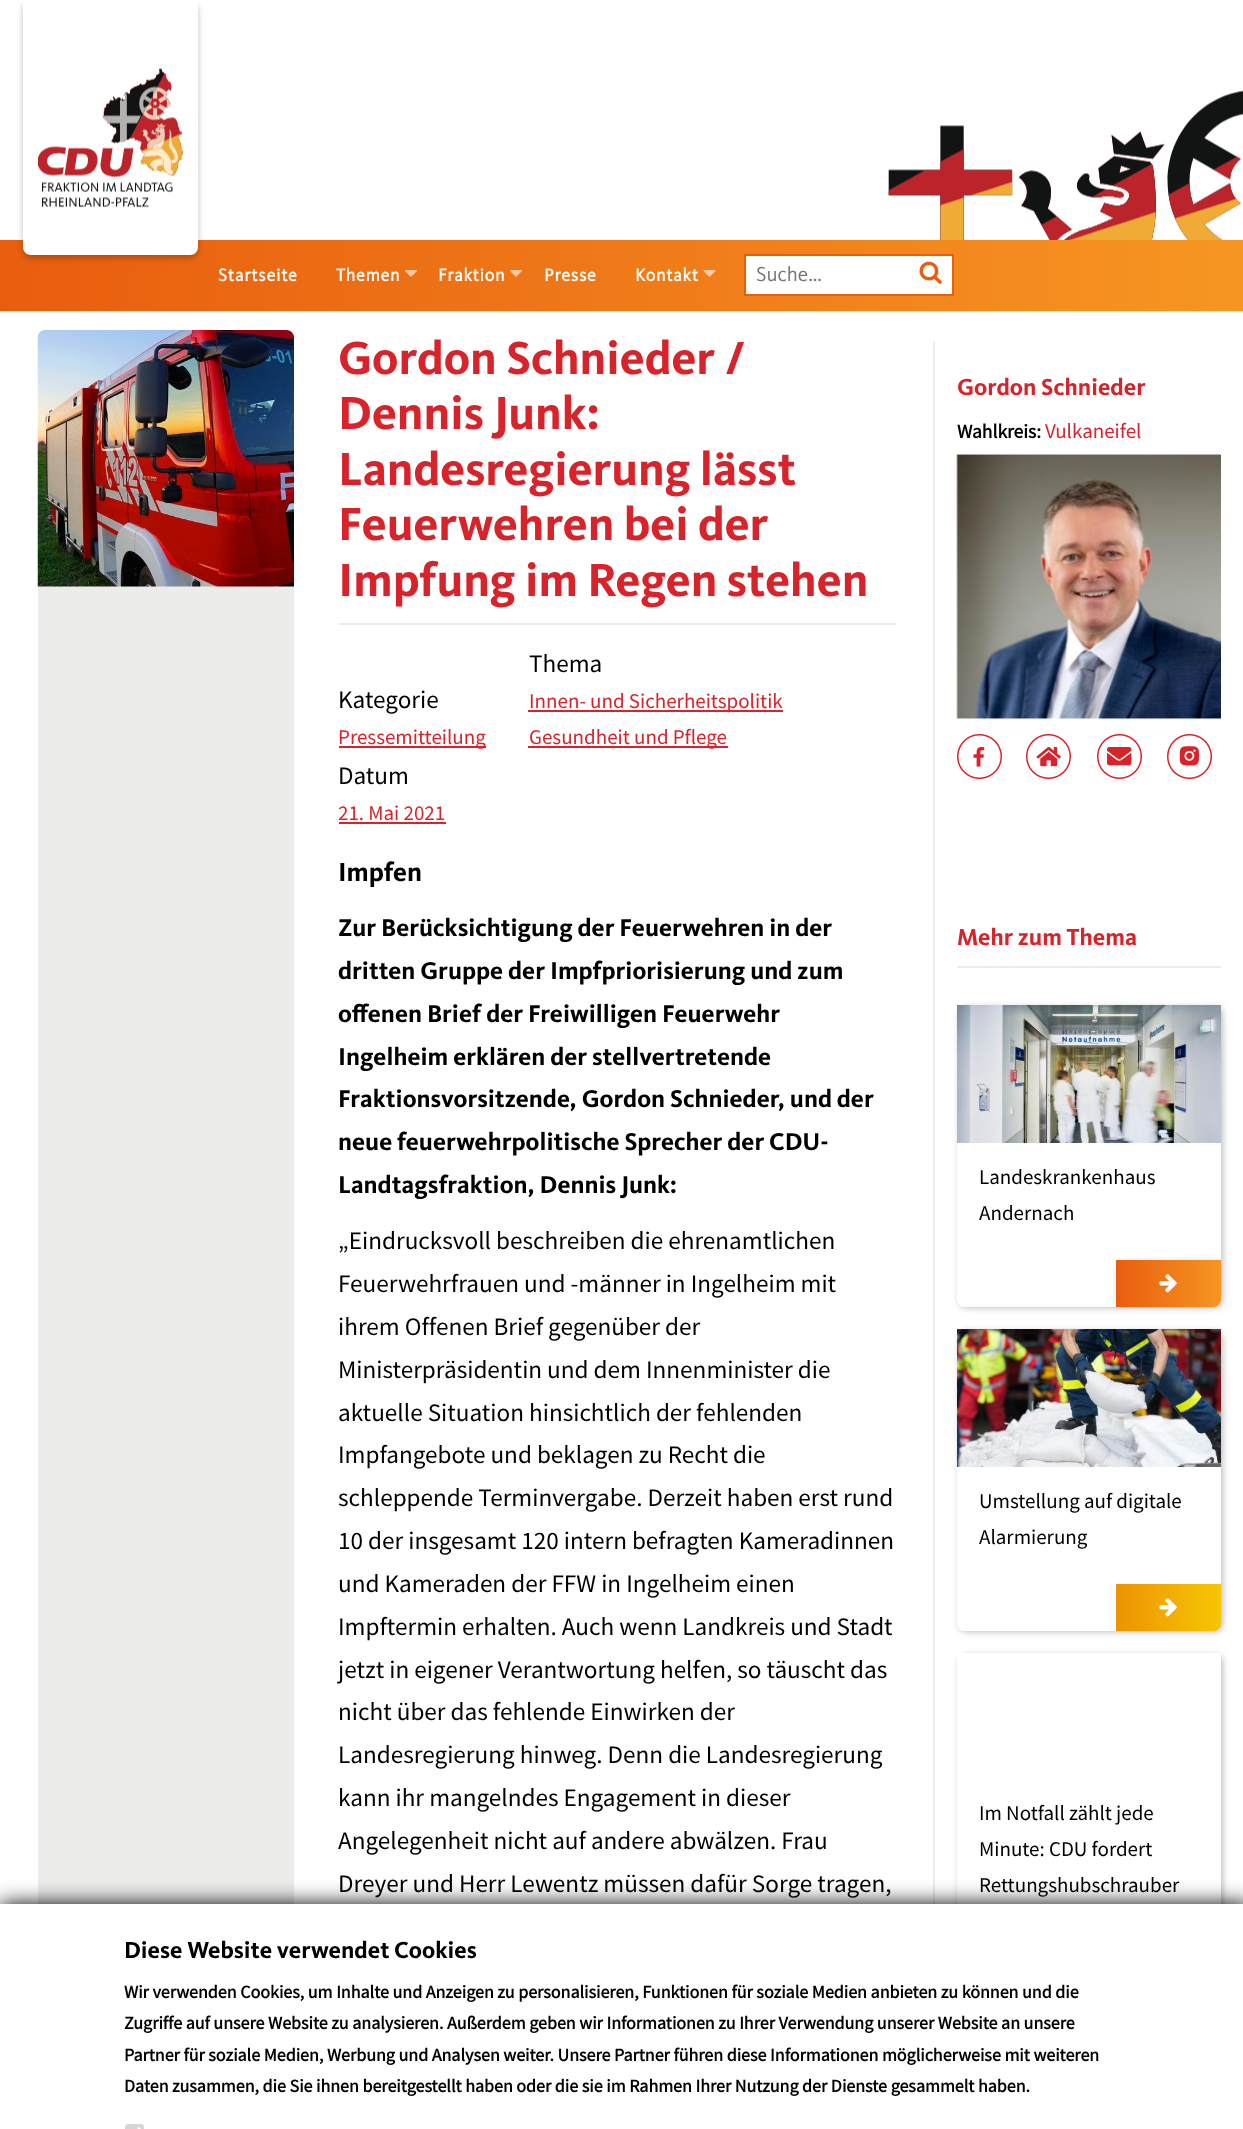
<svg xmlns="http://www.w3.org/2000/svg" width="1243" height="2129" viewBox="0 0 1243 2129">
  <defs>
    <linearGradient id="g1" gradientUnits="userSpaceOnUse" x1="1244" y1="275" x2="0" y2="275"><stop offset="0" stop-color="rgb(246,150,34)"/><stop offset="1" stop-color="rgb(233,93,15)"/></linearGradient>
    <clipPath id="clip1"><path d="M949 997H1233V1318H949ZM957 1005H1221V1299C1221 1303.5 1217.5 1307 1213 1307H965C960.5 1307 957 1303.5 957 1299Z" clip-rule="evenodd"/></clipPath>
    <clipPath id="clip2"><path d="M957 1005H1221V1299C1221 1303.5 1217.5 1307 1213 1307H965C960.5 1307 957 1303.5 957 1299Z"/></clipPath>
    <linearGradient id="g2" gradientUnits="userSpaceOnUse" x1="1221" y1="1283" x2="1116" y2="1283"><stop offset="0" stop-color="rgb(246,150,34)"/><stop offset="1" stop-color="rgb(233,93,15)"/></linearGradient>
    <clipPath id="clip3"><path d="M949 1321H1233V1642H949ZM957 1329H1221V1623C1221 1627.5 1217.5 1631 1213 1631H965C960.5 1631 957 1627.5 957 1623Z" clip-rule="evenodd"/></clipPath>
    <clipPath id="clip4"><path d="M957 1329H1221V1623C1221 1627.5 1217.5 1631 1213 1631H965C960.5 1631 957 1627.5 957 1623Z"/></clipPath>
    <linearGradient id="g3" gradientUnits="userSpaceOnUse" x1="1221" y1="1607" x2="1116" y2="1607"><stop offset="0" stop-color="rgb(247,198,5)"/><stop offset="1" stop-color="rgb(236,148,2)"/></linearGradient>
    <clipPath id="clip5"><path d="M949 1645H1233V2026H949ZM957 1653H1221V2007C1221 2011.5 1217.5 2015 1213 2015H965C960.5 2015 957 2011.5 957 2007Z" clip-rule="evenodd"/></clipPath>
  </defs>
  <rect width="100%" height="100%" fill="rgb(255,255,255)"/>
  <rect x="0" y="240" width="1243" height="71" fill="url(#g1)"/>
  <rect x="23" y="3" width="175" height="255" rx="8" fill="rgba(0,0,0,0.25)" filter="blur(3px)"/>
  <path d="M23 0H198V247C198 251.5 194.5 255 190 255H31C26.5 255 23 251.5 23 247Z" fill="rgb(255,255,255)"/>
  <image x="38" y="68" width="145" height="140" href="pic1.png"/>
  <image x="888" y="90" width="355" height="150" href="pic2.png"/>
  <g font-family="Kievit" font-size="18" font-weight="bold" letter-spacing="0.75" fill="rgb(255,255,255)">
    <text x="218" y="281">Startseite</text>
    <text x="336" y="281">Themen</text>
  </g>
  <image x="405" y="270" width="12" height="7" href="pic3.png"/>
  <text x="438" y="281" font-family="Kievit" font-size="18" font-weight="bold" letter-spacing="0.75" fill="rgb(255,255,255)">Fraktion</text>
  <image x="510" y="270" width="12" height="7" href="pic4.png"/>
  <g font-family="Kievit" font-size="18" font-weight="bold" letter-spacing="0.75" fill="rgb(255,255,255)">
    <text x="544" y="281">Presse</text>
    <text x="635" y="281">Kontakt</text>
  </g>
  <image x="703" y="270" width="13" height="7" href="pic5.png"/>
  <rect x="745" y="255" width="208" height="40" fill="rgb(255,255,255)" stroke="rgb(233,93,15)" stroke-width="2"/>
  <text x="756" y="281" font-family="Kievit" font-size="21" fill="rgb(117,117,117)">Suche...</text>
  <image x="919" y="261" width="23" height="23" href="pic6.png"/>
  <path d="M46 330H286C290.5 330 294 333.5 294 338V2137H38V338C38 333.5 41.5 330 46 330Z" fill="rgb(236,236,235)"/>
  <image x="37" y="330" width="257" height="257" href="pic7.png"/>
  <rect x="339" y="623" width="557" height="2" fill="rgb(236,236,235)"/>
  <g font-family="'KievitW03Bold'" font-size="48" font-weight="bold" fill="rgb(217,35,42)">
    <text>
      <tspan x="338" y="374">Gordon Schnieder /</tspan>
      <tspan x="338" y="429">Dennis Junk:</tspan>
      <tspan x="338" y="485">Landesregierung lässt</tspan>
      <tspan x="338" y="540">Feuerwehren bei der</tspan>
      <tspan x="338" y="596">Impfung im Regen stehen</tspan>
    </text>
  </g>
  <text x="338" y="708" font-family="Source Sans Pro" font-size="25.2" fill="rgb(0,0,0)">Kategorie</text>
  <rect x="339" y="746" width="147" height="2" fill="rgb(217,35,42)"/>
  <text x="338" y="744" font-family="Source Sans Pro" font-size="21" fill="rgb(217,35,42)">Pressemitteilung</text>
  <text x="529" y="672" font-family="Source Sans Pro" font-size="25.2" fill="rgb(0,0,0)">Thema</text>
  <rect x="528" y="710" width="255" height="2" fill="rgb(217,35,42)"/>
  <text x="529" y="708" font-family="Source Sans Pro" font-size="21" fill="rgb(217,35,42)">Innen- und Sicherheitspolitik</text>
  <rect x="528" y="746" width="200" height="2" fill="rgb(217,35,42)"/>
  <text x="529" y="744" font-family="Source Sans Pro" font-size="21" fill="rgb(217,35,42)">Gesundheit und Pflege</text>
  <text x="338" y="784" font-family="Source Sans Pro" font-size="25.2" fill="rgb(0,0,0)">Datum</text>
  <text x="338" y="820" font-family="Source Sans Pro" font-size="21" fill="rgb(217,35,42)">21. Mai 2021</text>
  <rect x="339" y="822" width="107" height="2" fill="rgb(217,35,42)"/>
  <text x="338" y="881" font-family="'KievitW03Bold'" font-size="27" font-weight="bold" fill="rgb(0,0,0)">Impfen</text>
  <g font-family="'KievitW03Bold'" font-size="25.2" font-weight="bold" fill="rgb(0,0,0)">
    <text>
      <tspan x="338" y="936">Zur Berücksichtigung der Feuerwehren in der</tspan>
      <tspan x="338" y="979">dritten Gruppe der Impfpriorisierung und zum</tspan>
      <tspan x="338" y="1022">offenen Brief der Freiwilligen Feuerwehr</tspan>
      <tspan x="338" y="1065">Ingelheim erklären der stellvertretende</tspan>
      <tspan x="338" y="1107">Fraktionsvorsitzende, Gordon Schnieder, und der</tspan>
      <tspan x="338" y="1150">neue feuerwehrpolitische Sprecher der CDU-</tspan>
      <tspan x="338" y="1193">Landtagsfraktion, Dennis Junk:</tspan>
    </text>
  </g>
  <g font-family="Source Sans Pro" font-size="25.2" fill="rgb(0,0,0)">
    <text>
      <tspan x="338" y="1249">„Eindrucksvoll beschreiben die ehrenamtlichen</tspan>
      <tspan x="338" y="1292">Feuerwehrfrauen und -männer in Ingelheim mit</tspan>
      <tspan x="338" y="1335">ihrem Offenen Brief gegenüber der</tspan>
      <tspan x="338" y="1378">Ministerpräsidentin und dem Innenminister die</tspan>
      <tspan x="338" y="1421">aktuelle Situation hinsichtlich der fehlenden</tspan>
      <tspan x="338" y="1463">Impfangebote und beklagen zu Recht die</tspan>
      <tspan x="338" y="1506">schleppende Terminvergabe. Derzeit haben erst rund</tspan>
      <tspan x="338" y="1549">10 der insgesamt 120 intern befragten Kameradinnen</tspan>
      <tspan x="338" y="1592">und Kameraden der FFW in Ingelheim einen</tspan>
      <tspan x="338" y="1635">Impftermin erhalten. Auch wenn Landkreis und Stadt</tspan>
      <tspan x="338" y="1678">jetzt in eigener Verantwortung helfen, so täuscht das</tspan>
      <tspan x="338" y="1720">nicht über das fehlende Einwirken der</tspan>
      <tspan x="338" y="1763">Landesregierung hinweg. Denn die Landesregierung</tspan>
      <tspan x="338" y="1806">kann ihr mangelndes Engagement in dieser</tspan>
      <tspan x="338" y="1849">Angelegenheit nicht auf andere abwälzen. Frau</tspan>
      <tspan x="338" y="1892">Dreyer und Herr Lewentz müssen dafür Sorge tragen,</tspan>
    </text>
  </g>
  <rect x="933" y="342" width="2" height="1562" fill="rgb(236,236,235)"/>
  <text x="957" y="395" font-family="'KievitW03Bold'" font-size="24" font-weight="bold" fill="rgb(217,35,42)">Gordon Schnieder</text>
  <text x="957" y="438" font-family="Source Sans Pro" font-size="19.5" font-weight="bold" fill="rgb(0,0,0)">Wahlkreis:</text>
  <text x="1045" y="438" font-family="Source Sans Pro" font-size="21" fill="rgb(217,35,42)">Vulkaneifel</text>
  <image x="956" y="454" width="265" height="266" href="pic8.png"/>
  <image x="957" y="734" width="45" height="45" href="pic9.png"/>
  <image x="1026" y="734" width="45" height="45" href="pic10.png"/>
  <image x="1097" y="734" width="45" height="45" href="pic11.png"/>
  <image x="1167" y="734" width="45" height="45" href="pic12.png"/>
  <rect x="957" y="966" width="264" height="2" fill="rgb(236,236,235)"/>
  <text x="957" y="945" font-family="'KievitW03Bold'" font-size="24" font-weight="bold" fill="rgb(217,35,42)">Mehr zum Thema</text>
  <g clip-path="url(#clip1)">
    <rect x="959" y="1007" width="264" height="301" rx="8" fill="rgba(0,0,0,0.25)" filter="blur(3px)"/>
  </g>
  <image x="957" y="1005" width="264" height="138" href="pic13.png"/>
  <g font-family="Source Sans Pro" font-size="21" fill="rgb(0,0,0)">
    <text>
      <tspan x="979" y="1184">Landeskrankenhaus</tspan>
      <tspan x="979" y="1220">Andernach</tspan>
    </text>
  </g>
  <g clip-path="url(#clip2)">
    <rect x="1118" y="1262" width="105" height="46" rx="8" fill="rgba(0,0,0,0.25)" filter="blur(3px)"/>
  </g>
  <path d="M1116 1260H1221V1299C1221 1303.5 1217.5 1307 1213 1307H1116Z" fill="url(#g2)"/>
  <image x="1159" y="1274" width="18" height="19" href="pic14.png"/>
  <g clip-path="url(#clip3)">
    <rect x="959" y="1331" width="264" height="301" rx="8" fill="rgba(0,0,0,0.25)" filter="blur(3px)"/>
  </g>
  <image x="957" y="1329" width="264" height="138" href="pic15.png"/>
  <g font-family="Source Sans Pro" font-size="21" fill="rgb(0,0,0)">
    <text>
      <tspan x="979" y="1508">Umstellung auf digitale</tspan>
      <tspan x="979" y="1544">Alarmierung</tspan>
    </text>
  </g>
  <g clip-path="url(#clip4)">
    <rect x="1118" y="1586" width="105" height="46" rx="8" fill="rgba(0,0,0,0.25)" filter="blur(1px)"/>
  </g>
  <path d="M1116 1584H1221V1623C1221 1627.5 1217.5 1631 1213 1631H1116Z" fill="url(#g3)"/>
  <image x="1159" y="1598" width="18" height="19" href="pic16.png"/>
  <g clip-path="url(#clip5)">
    <rect x="959" y="1655" width="264" height="361" rx="8" fill="rgba(0,0,0,0.25)" filter="blur(3px)"/>
  </g>
  <g font-family="Source Sans Pro" font-size="21" fill="rgb(0,0,0)">
    <text>
      <tspan x="979" y="1820">Im Notfall zählt jede</tspan>
      <tspan x="979" y="1856">Minute: CDU fordert</tspan>
      <tspan x="979" y="1892">Rettungshubschrauber</tspan>
    </text>
  </g>
  <rect x="0" y="1904" width="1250" height="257" fill="rgb(0,0,0)" filter="blur(10.5px)"/>
  <rect x="0" y="1904" width="1243" height="225" fill="rgb(255,255,255)"/>
  <text x="124" y="1958" font-family="'KievitW03Bold'" font-size="24" font-weight="bold" fill="rgb(0,0,0)">Diese Website verwendet Cookies</text>
  <g font-family="Source Sans Pro" font-size="18" font-weight="bold" fill="rgb(0,0,0)">
    <text>
      <tspan x="124" y="1998">Wir verwenden Cookies, um Inhalte und Anzeigen zu personalisieren, Funktionen für soziale Medien anbieten zu können und die</tspan>
      <tspan x="124" y="2029">Zugriffe auf unsere Website zu analysieren. Außerdem geben wir Informationen zu Ihrer Verwendung unserer Website an unsere</tspan>
      <tspan x="124" y="2061">Partner für soziale Medien, Werbung und Analysen weiter. Unsere Partner führen diese Informationen möglicherweise mit weiteren</tspan>
      <tspan x="124" y="2092">Daten zusammen, die Sie ihnen bereitgestellt haben oder die sie im Rahmen Ihrer Nutzung der Dienste gesammelt haben.</tspan>
    </text>
  </g>
  <rect x="125" y="2124" width="19" height="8" rx="3" fill="rgb(214,214,214)"/>
  <path d="M128.5 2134L132.5 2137.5L140 2128" fill="none" stroke="rgb(255,255,255)" stroke-width="3.1"/>
</svg>
